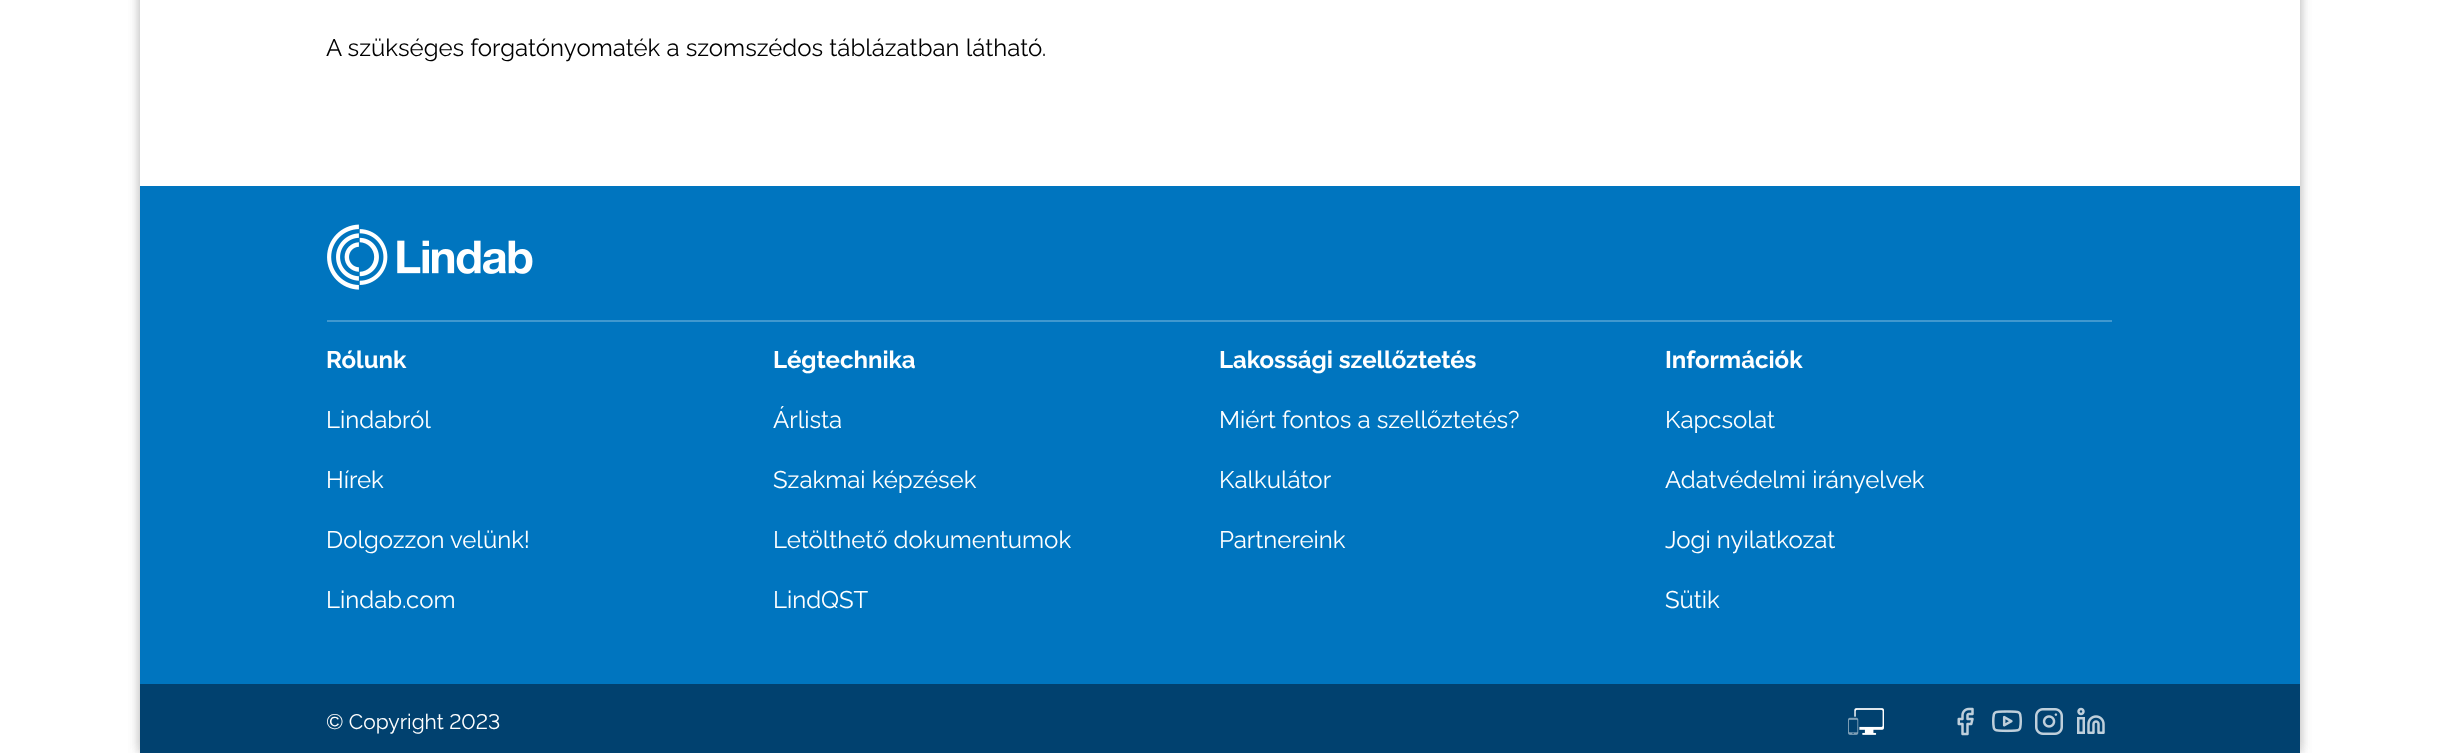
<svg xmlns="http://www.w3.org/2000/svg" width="2437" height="753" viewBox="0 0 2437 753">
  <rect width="100%" height="100%" fill="rgb(255,255,255)"/>
  <rect x="140" y="-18" width="2160" height="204" fill="rgba(42,42,42,0.2)" filter="blur(6px)"/>
  <rect x="140" y="-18" width="2160" height="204" fill="rgba(42,42,42,0.2)" filter="blur(6px)"/>
  <rect x="140" y="0" width="2160" height="173" fill="rgb(255,255,255)"/>
  <text x="326" y="56" font-family="Raleway" font-size="24" font-weight="100" fill="rgb(0,0,0)">A szükséges forgatónyomaték a szomszédos táblázatban látható.</text>
  <rect x="140" y="186" width="2160" height="567" fill="rgba(42,42,42,0.2)" filter="blur(6px)"/>
  <rect x="140" y="186" width="2160" height="567" fill="rgba(42,42,42,0.2)" filter="blur(6px)"/>
  <path d="M140 173V186H2300V740V173Z" fill="rgb(255,255,255)"/>
  <rect x="140" y="186" width="2160" height="498" fill="rgb(0,117,191)"/>
  <image x="327" y="224" width="206" height="66" href="pic1.png"/>
  <rect x="327" y="320" width="1785" height="2" fill="rgb(64,152,207)"/>
  <text x="326" y="368" font-family="'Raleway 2'" font-size="24" font-weight="100" fill="rgb(255,255,255)">Rólunk</text>
  <g font-family="Raleway" font-size="24" font-weight="100" fill="rgb(255,255,255)">
    <text x="326" y="428">Lindabról</text>
    <text x="326" y="488">Hírek</text>
    <text x="326" y="548">Dolgozzon velünk!</text>
    <text x="326" y="608">Lindab.com</text>
  </g>
  <text x="773" y="368" font-family="'Raleway 2'" font-size="24" font-weight="100" fill="rgb(255,255,255)">Légtechnika</text>
  <g font-family="Raleway" font-size="24" font-weight="100" fill="rgb(255,255,255)">
    <text x="773" y="428">Árlista</text>
    <text x="773" y="488">Szakmai képzések</text>
    <text x="773" y="548">Letölthető dokumentumok</text>
    <text x="773" y="608">LindQST</text>
  </g>
  <text x="1219" y="368" font-family="'Raleway 2'" font-size="24" font-weight="100" fill="rgb(255,255,255)">Lakossági szellőztetés</text>
  <g font-family="Raleway" font-size="24" font-weight="100" fill="rgb(255,255,255)">
    <text x="1219" y="428">Miért fontos a szellőztetés?</text>
    <text x="1219" y="488">Kalkulátor</text>
    <text x="1219" y="548">Partnereink</text>
  </g>
  <text x="1665" y="368" font-family="'Raleway 2'" font-size="24" font-weight="100" fill="rgb(255,255,255)">Információk</text>
  <g font-family="Raleway" font-size="24" font-weight="100" fill="rgb(255,255,255)">
    <text x="1665" y="428">Kapcsolat</text>
    <text x="1665" y="488">Adatvédelmi irányelvek</text>
    <text x="1665" y="548">Jogi nyilatkozat</text>
    <text x="1665" y="608">Sütik</text>
  </g>
  <rect x="140" y="684" width="2160" height="69" fill="rgb(1,65,111)"/>
  <text x="326" y="729" font-family="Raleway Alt" font-size="21" font-weight="100" fill="rgb(255,255,255)">© Copyright 2023</text>
  <image x="1848" y="708" width="36" height="27" href="pic2.png"/>
  <image x="1957" y="707" width="17" height="29" href="pic3.png"/>
  <image x="1992" y="710" width="30" height="23" href="pic4.png"/>
  <image x="2035" y="708" width="28" height="27" href="pic5.png"/>
  <image x="2077" y="707" width="28" height="27" href="pic6.png"/>
</svg>
